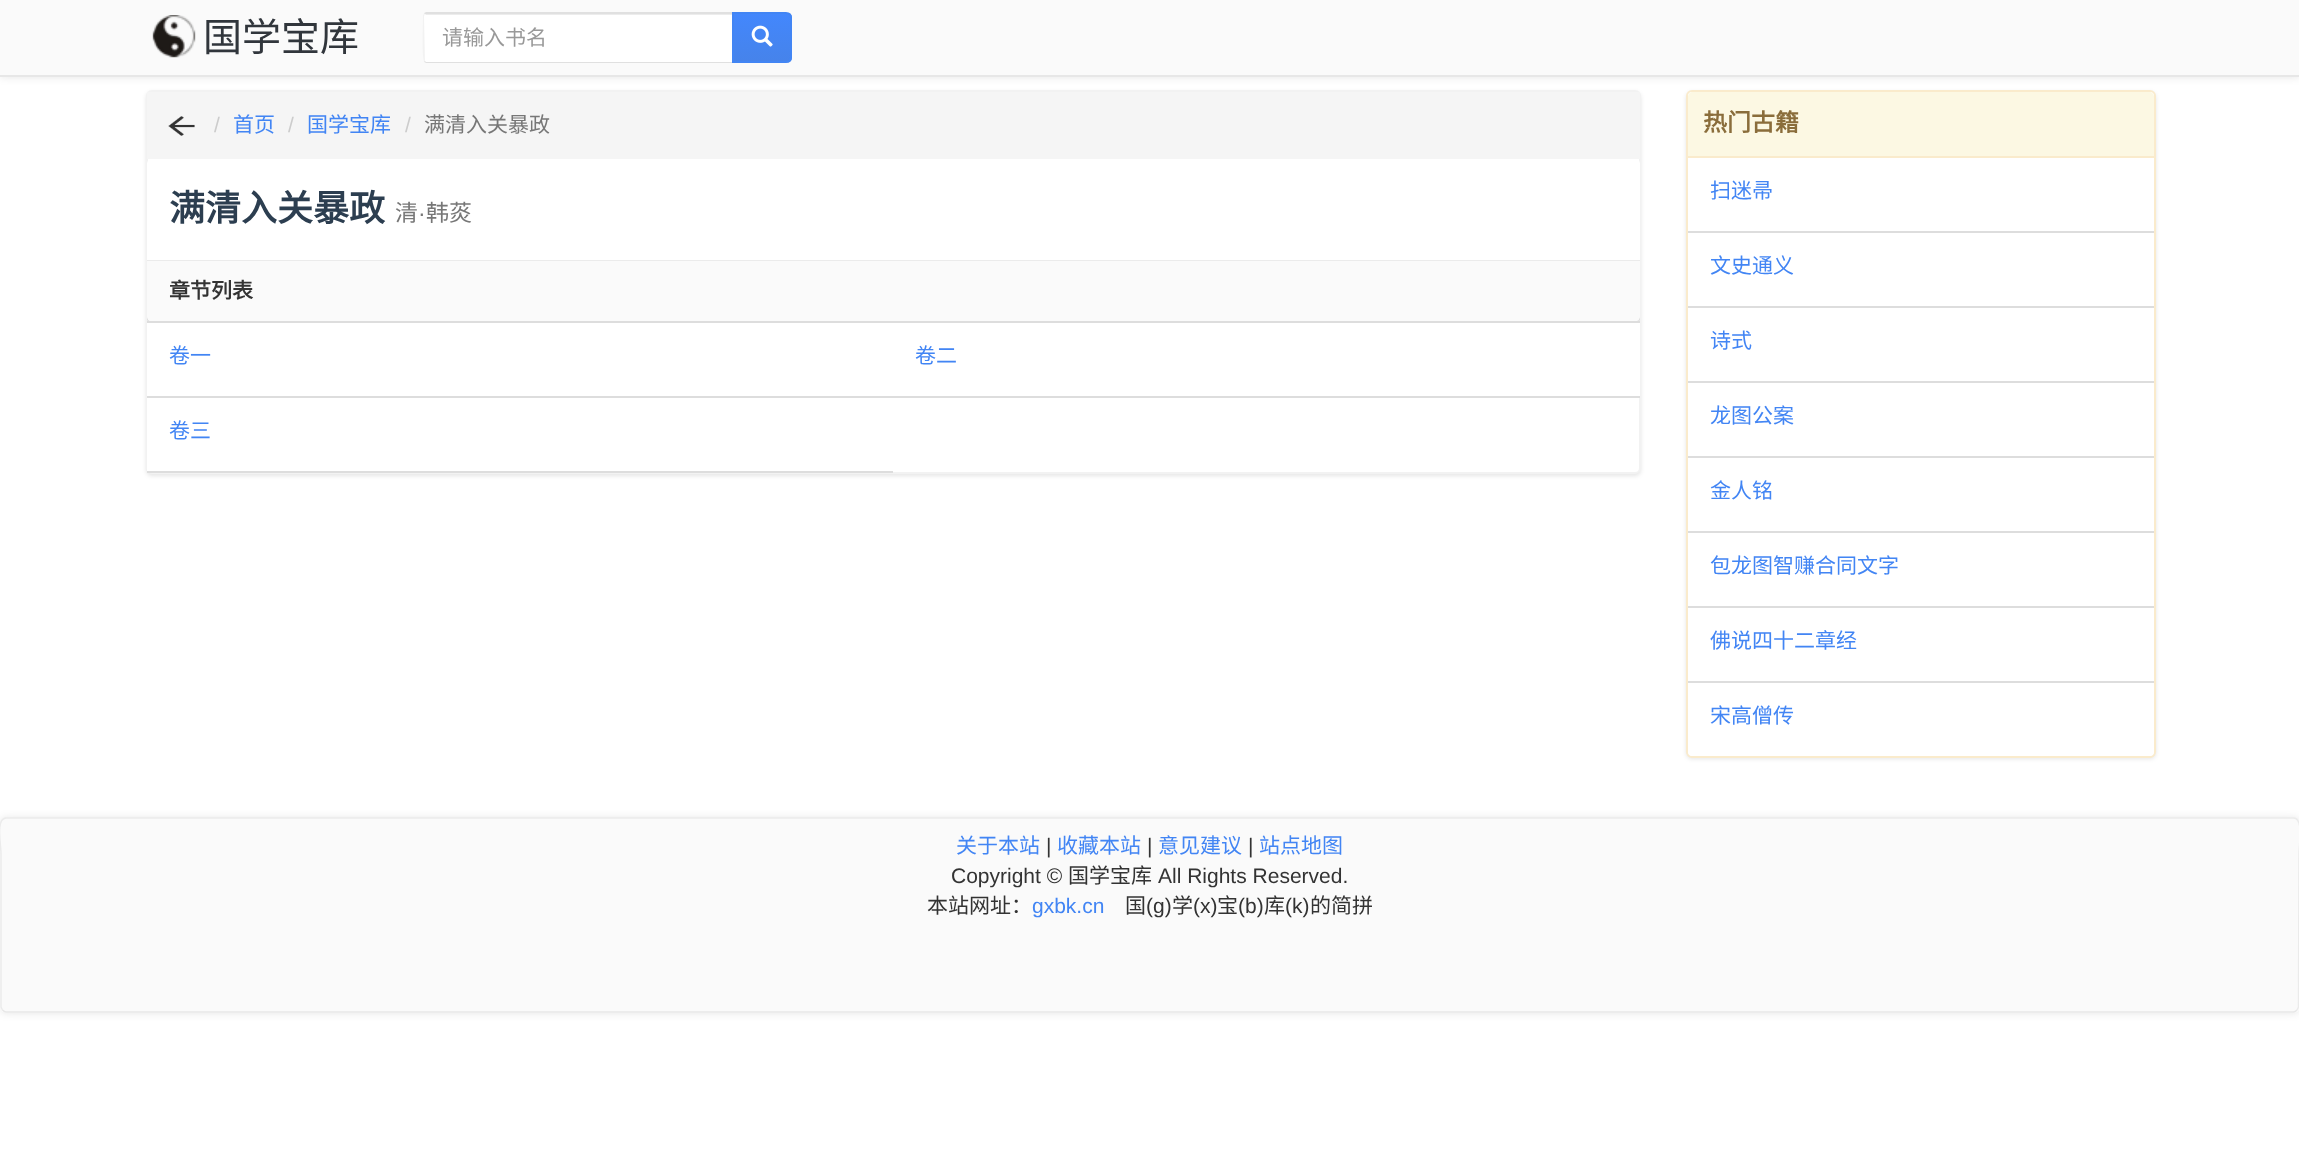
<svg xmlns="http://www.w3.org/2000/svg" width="2299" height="1172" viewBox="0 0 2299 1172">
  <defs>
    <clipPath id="clip1"><path d="M732 12H786C789.5 12 792 14.5 792 18V57C792 60.5 789.5 63 786 63H732Z"/></clipPath>
    <linearGradient id="g1" gradientUnits="userSpaceOnUse" x1="762" y1="13" x2="762" y2="62"><stop offset="0" stop-color="rgb(67,135,253)"/><stop offset="1" stop-color="rgb(70,131,234)"/></linearGradient>
  </defs>
  <rect width="100%" height="100%" fill="rgb(255,255,255)"/>
  <rect x="0" y="0" width="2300" height="77" fill="rgba(0,0,0,0.1)" filter="blur(4px)"/>
  <rect x="0" y="0" width="2299" height="75" fill="rgb(250,250,250)"/>
  <rect x="0" y="75" width="2299" height="2" fill="rgb(231,231,231)"/>
  <image x="152" y="15" width="44" height="43" href="pic1.png"/>
  <text x="203" y="51" font-family="Noto Sans CJK SC" font-size="39" fill="rgb(49,54,60)">国学宝库</text>
  <path d="M426 12H734V63H426C424.5 63 423 61.5 423 60V15C423 13.5 424.5 12 426 12Z" fill="rgb(255,255,255)"/>
  <path d="M426 15H732V14H426L425 15Z" fill="rgb(236,236,236)"/>
  <path d="M426 12L424 13L425 14H732L734 12Z" fill="rgb(224,224,224)"/>
  <path d="M734 63L732 62H426L425 61L424 62L426 63Z" fill="rgba(0,0,0,0.12)"/>
  <path d="M423 15C423 21 422 60 424 62L425 61L424 16L425 14L424 13Z" fill="rgba(0,0,0,0.05)"/>
  <text x="442" y="45" font-family="Noto Sans CJK SC" font-size="21" fill="rgb(153,153,153)">请输入书名</text>
  <g clip-path="url(#clip1)">
    <rect x="734" y="14" width="58" height="48" fill="url(#g1)"/>
  </g>
  <path d="M733 13H786C789 13 791 15 791 18V57C791 60 789 62 786 62H733Z" fill="none" stroke="rgb(66,133,244)" stroke-width="2"/>
  <image x="751" y="25" width="22" height="22" href="pic2.png"/>
  <rect x="146" y="92" width="1495" height="384" rx="6" fill="rgba(0,0,0,0.1)" filter="blur(2px)"/>
  <rect x="147" y="91" width="1493" height="382" rx="5" fill="rgb(255,255,255)" stroke="rgb(242,242,242)" stroke-width="2"/>
  <rect x="147" y="92" width="1493" height="67" fill="rgb(245,245,245)"/>
  <image x="168" y="116" width="27" height="20" href="pic3.png"/>
  <text x="214" y="132" font-family="Liberation Sans" font-size="21" fill="rgb(204,204,204)">/</text>
  <text x="233" y="132" font-family="Noto Sans CJK SC" font-size="21" fill="rgb(66,133,244)">首页</text>
  <text x="288" y="132" font-family="Liberation Sans" font-size="21" fill="rgb(204,204,204)">/</text>
  <text x="307" y="132" font-family="Noto Sans CJK SC" font-size="21" fill="rgb(66,133,244)">国学宝库</text>
  <text x="405" y="132" font-family="Liberation Sans" font-size="21" fill="rgb(204,204,204)">/</text>
  <text x="424" y="132" font-family="Noto Sans CJK SC" font-size="21" fill="rgb(119,119,119)">满清入关暴政</text>
  <path d="M152 159H1635C1638 159 1640 161 1640 164V261H147V164C147 161 149 159 152 159Z" fill="rgb(255,255,255)"/>
  <rect x="147" y="260" width="1493" height="1" fill="rgb(235,235,235)"/>
  <text x="169" y="221" font-family="Noto Sans CJK SC" font-size="36" font-weight="bold" fill="rgb(44,62,80)">满清入关暴政</text>
  <text x="395" y="221" font-family="Noto Sans CJK SC" font-size="23" fill="rgb(119,119,119)">清</text>
  <text x="418" y="221" font-family="Liberation Sans" font-size="23" fill="rgb(119,119,119)">·</text>
  <text x="426" y="221" font-family="Noto Sans CJK SC" font-size="23" fill="rgb(119,119,119)">韩菼</text>
  <path d="M147 316V318C147 321 149 323 152 323H1635C1638 323 1640 321 1640 318V263V316C1640 319 1637 321 1635 321H152C149 321 147 319 147 316Z" fill="rgba(0,0,0,0.1)"/>
  <path d="M147 261H1640V316C1640 319 1638 321 1635 321H152C149 321 147 319 147 316Z" fill="rgb(250,250,250)"/>
  <text x="169" y="298" font-family="Noto Sans CJK SC" font-size="21" font-weight="bold" fill="rgb(51,51,51)">章节列表</text>
  <rect x="147" y="323" width="1" height="73" fill="rgb(255,255,255)"/>
  <rect x="147" y="321" width="1493" height="2" fill="rgb(221,221,221)"/>
  <rect x="147" y="396" width="1493" height="2" fill="rgb(221,221,221)"/>
  <text x="169" y="363" font-family="Noto Sans CJK SC" font-size="21" fill="rgb(66,133,244)">卷一</text>
  <rect x="1639" y="323" width="1" height="73" fill="rgb(255,255,255)"/>
  <text x="915" y="363" font-family="Noto Sans CJK SC" font-size="21" fill="rgb(66,133,244)">卷二</text>
  <rect x="147" y="398" width="2" height="73" fill="rgb(255,255,255)"/>
  <rect x="147" y="471" width="746" height="2" fill="rgb(221,221,221)"/>
  <text x="169" y="438" font-family="Noto Sans CJK SC" font-size="21" fill="rgb(66,133,244)">卷三</text>
  <rect x="1686" y="92" width="470" height="667" rx="6" fill="rgba(0,0,0,0.1)" filter="blur(2px)"/>
  <rect x="1687" y="91" width="468" height="666" rx="5" fill="rgb(255,255,255)" stroke="rgb(250,235,204)" stroke-width="2"/>
  <path d="M1693 92H2149C2152 92 2154 94 2154 97V158H1688V97C1688 94 1690 92 1693 92Z" fill="rgb(252,248,227)"/>
  <rect x="1688" y="156" width="466" height="2" fill="rgb(250,235,204)"/>
  <text x="1703" y="131" font-family="Noto Sans CJK SC" font-size="24" font-weight="bold" fill="rgb(138,109,59)">热门古籍</text>
  <rect x="1688" y="231" width="466" height="2" fill="rgb(221,221,221)"/>
  <text x="1710" y="198" font-family="Noto Sans CJK SC" font-size="21" fill="rgb(66,133,244)">扫迷帚</text>
  <rect x="1688" y="306" width="466" height="2" fill="rgb(221,221,221)"/>
  <text x="1710" y="273" font-family="Noto Sans CJK SC" font-size="21" fill="rgb(66,133,244)">文史通义</text>
  <rect x="1688" y="381" width="466" height="2" fill="rgb(221,221,221)"/>
  <text x="1710" y="348" font-family="Noto Sans CJK SC" font-size="21" fill="rgb(66,133,244)">诗式</text>
  <rect x="1688" y="456" width="466" height="2" fill="rgb(221,221,221)"/>
  <text x="1710" y="423" font-family="Noto Sans CJK SC" font-size="21" fill="rgb(66,133,244)">龙图公案</text>
  <rect x="1688" y="531" width="466" height="2" fill="rgb(221,221,221)"/>
  <text x="1710" y="498" font-family="Noto Sans CJK SC" font-size="21" fill="rgb(66,133,244)">金人铭</text>
  <rect x="1688" y="606" width="466" height="2" fill="rgb(221,221,221)"/>
  <g font-family="Noto Sans CJK SC" font-size="21" fill="rgb(66,133,244)">
    <text x="1710" y="573">包龙图智赚合同文字</text>
    <text x="1710" y="648">佛说四十二章经</text>
  </g>
  <path d="M1688 681H2154V751C2154 754 2152 756 2149 756H1693C1690 756 1688 754 1688 751Z" fill="rgb(255,255,255)"/>
  <rect x="1688" y="681" width="466" height="2" fill="rgb(221,221,221)"/>
  <text x="1710" y="723" font-family="Noto Sans CJK SC" font-size="21" fill="rgb(66,133,244)">宋高僧传</text>
  <rect x="0" y="818" width="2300" height="195" rx="6" fill="rgba(0,0,0,0.1)" filter="blur(4px)"/>
  <rect x="0" y="818" width="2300" height="195" rx="6" fill="rgb(250,250,250)"/>
  <path d="M2297 1010C2296 1011 2295 1012 2293.5 1012H6C4.5 1012 3.5 1011 2.5 1010" fill="none" stroke="rgb(231,231,231)" stroke-width="1.5"/>
  <path d="M2.5 1010L1 1007V854C1 844-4.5 818.5 6 818H2293.5C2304 818.5 2299 844 2299 854L2298.5 1007L2297 1010" fill="none" stroke="rgb(235,235,235)" stroke-width="1.5"/>
  <text x="956" y="853" font-family="Noto Sans CJK SC" font-size="21" fill="rgb(66,133,244)">关于本站</text>
  <text x="1046" y="853" font-family="Liberation Sans" font-size="21" fill="rgb(51,51,51)">|</text>
  <text x="1057" y="853" font-family="Noto Sans CJK SC" font-size="21" fill="rgb(66,133,244)">收藏本站</text>
  <text x="1147" y="853" font-family="Liberation Sans" font-size="21" fill="rgb(51,51,51)">|</text>
  <text x="1158" y="853" font-family="Noto Sans CJK SC" font-size="21" fill="rgb(66,133,244)">意见建议</text>
  <text x="1248" y="853" font-family="Liberation Sans" font-size="21" fill="rgb(51,51,51)">|</text>
  <text x="1259" y="853" font-family="Noto Sans CJK SC" font-size="21" fill="rgb(66,133,244)">站点地图</text>
  <text x="951" y="883" font-family="Liberation Sans" font-size="21" fill="rgb(51,51,51)">Copyright ©</text>
  <text x="1068" y="883" font-family="Noto Sans CJK SC" font-size="21" fill="rgb(51,51,51)">国学宝库</text>
  <text x="1158" y="883" font-family="Liberation Sans" font-size="21" fill="rgb(51,51,51)">All Rights Reserved.</text>
  <text x="927" y="913" font-family="Noto Sans CJK SC" font-size="21" fill="rgb(51,51,51)">本站网址：</text>
  <text x="1032" y="913" font-family="Liberation Sans" font-size="21" fill="rgb(66,133,244)">gxbk.cn</text>
  <text x="1125" y="913" font-family="Noto Sans CJK SC" font-size="21" fill="rgb(51,51,51)">国</text>
  <text x="1146" y="913" font-family="Liberation Sans" font-size="21" fill="rgb(51,51,51)">(g)</text>
  <text x="1172" y="913" font-family="Noto Sans CJK SC" font-size="21" fill="rgb(51,51,51)">学</text>
  <text x="1193" y="913" font-family="Liberation Sans" font-size="21" fill="rgb(51,51,51)">(x)</text>
  <text x="1217" y="913" font-family="Noto Sans CJK SC" font-size="21" fill="rgb(51,51,51)">宝</text>
  <text x="1238" y="913" font-family="Liberation Sans" font-size="21" fill="rgb(51,51,51)">(b)</text>
  <text x="1264" y="913" font-family="Noto Sans CJK SC" font-size="21" fill="rgb(51,51,51)">库</text>
  <text x="1285" y="913" font-family="Liberation Sans" font-size="21" fill="rgb(51,51,51)">(k)</text>
  <text x="1310" y="913" font-family="Noto Sans CJK SC" font-size="21" fill="rgb(51,51,51)">的简拼</text>
</svg>
